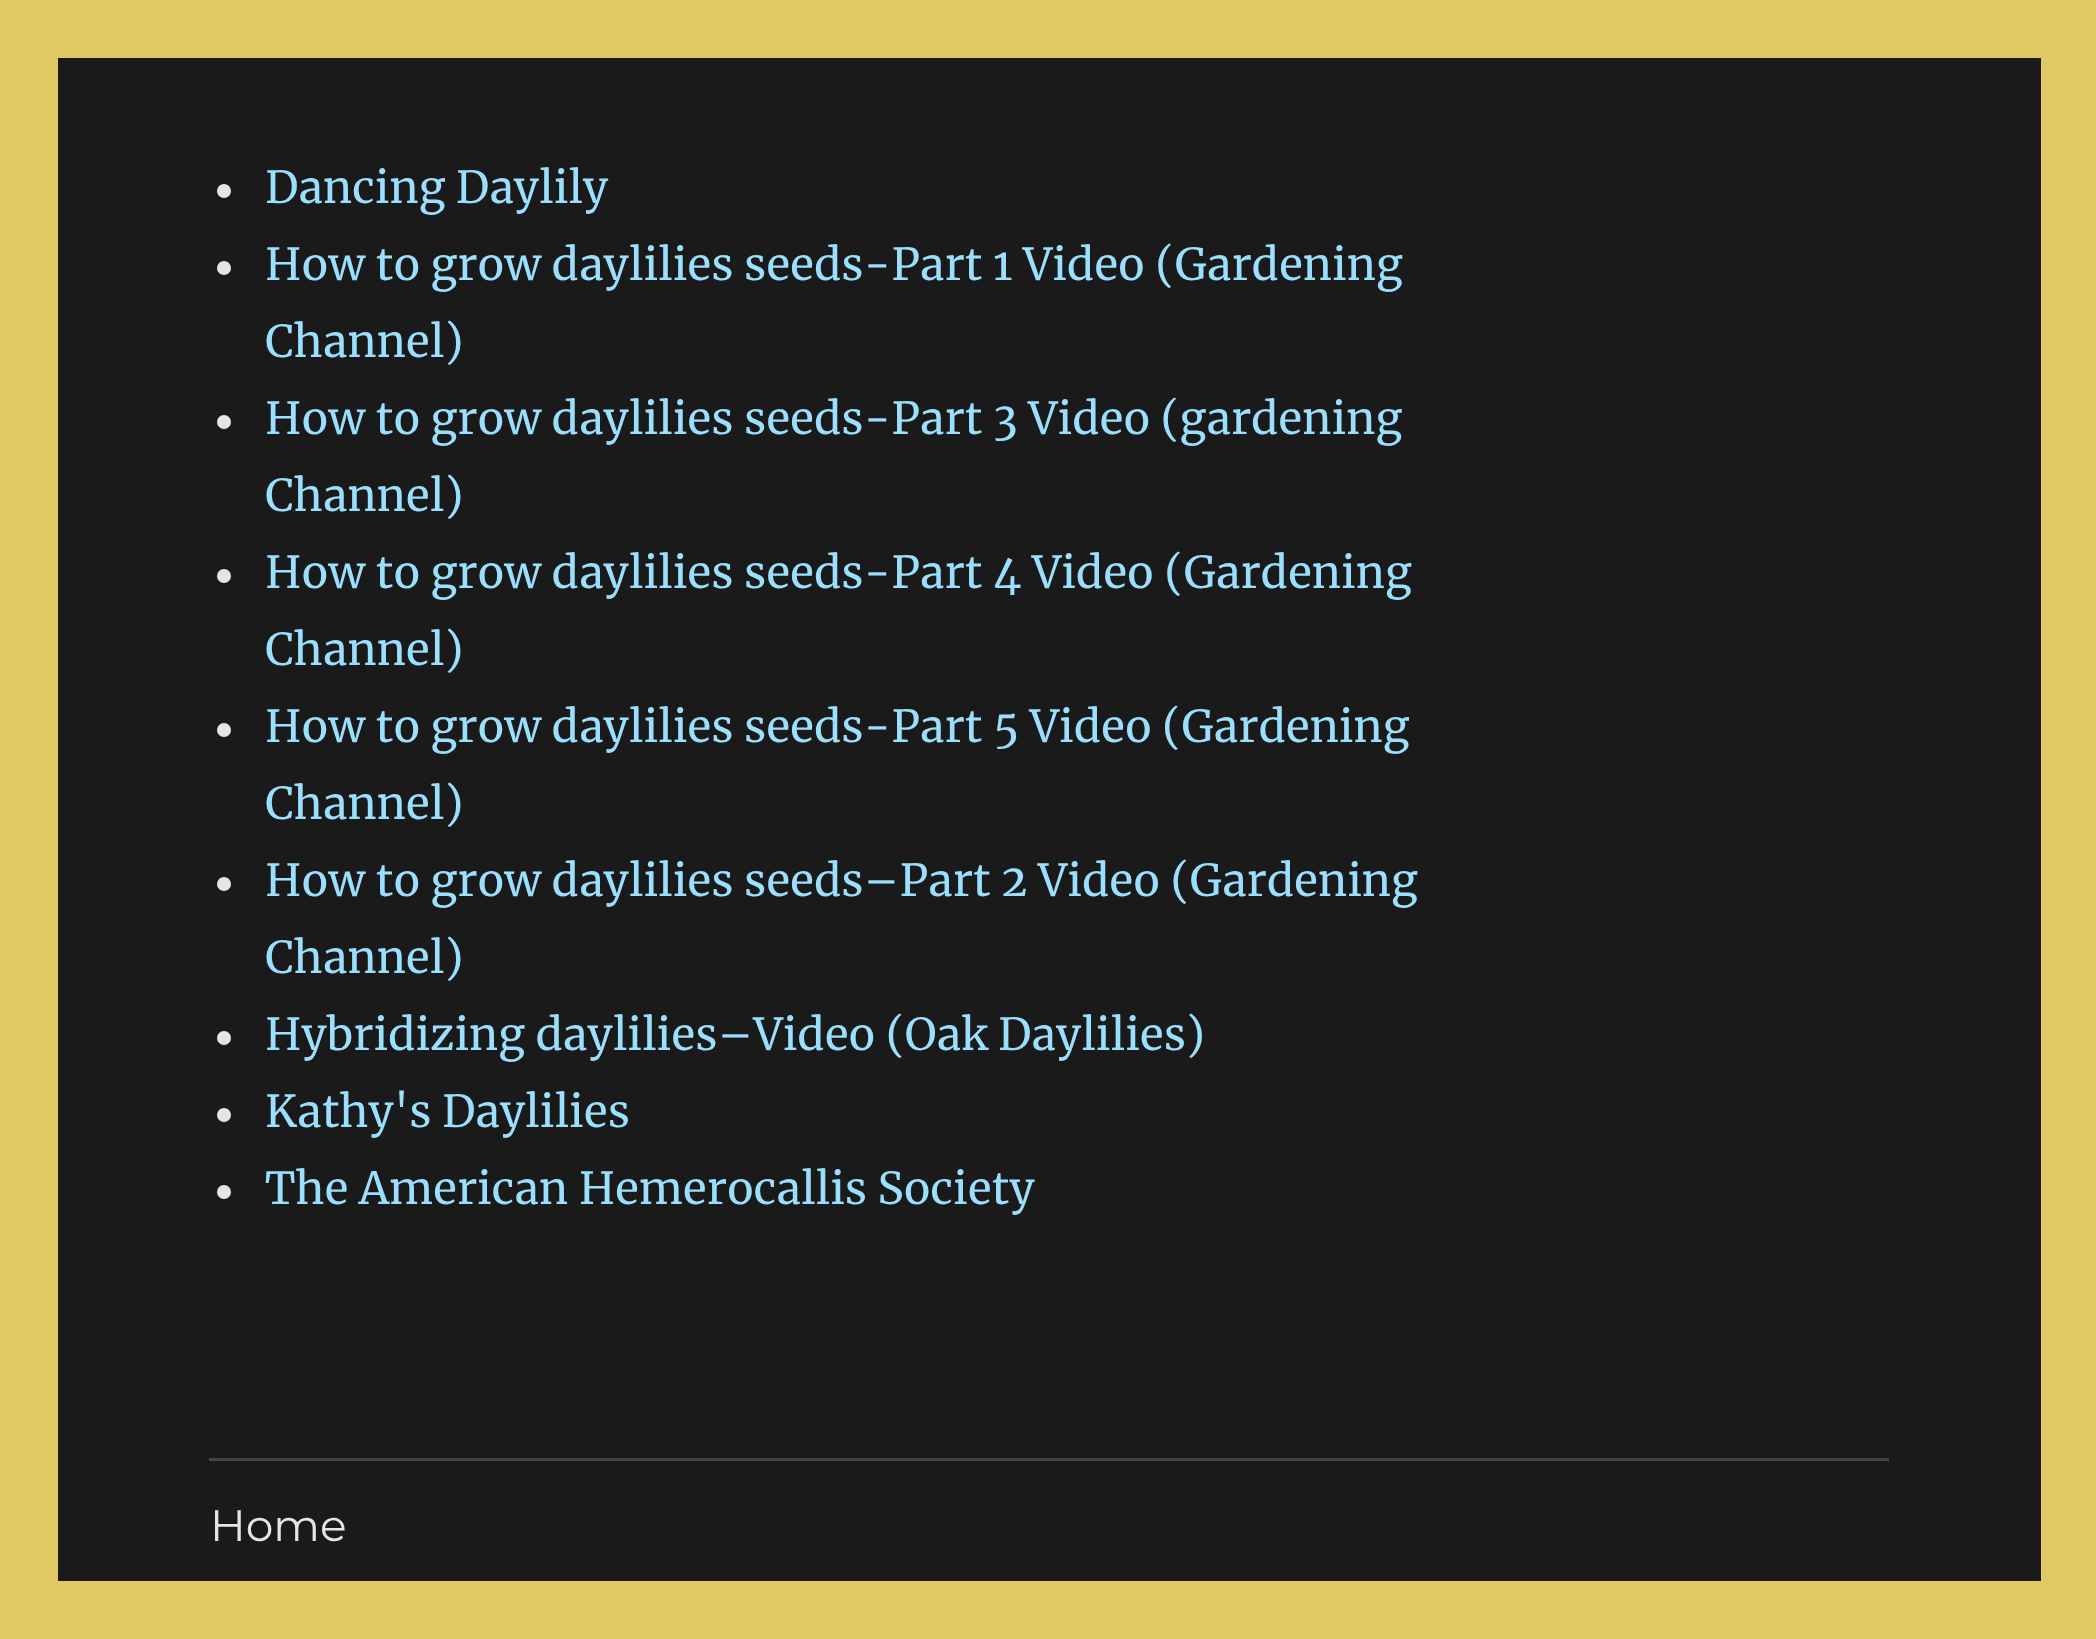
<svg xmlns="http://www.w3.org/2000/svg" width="2096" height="1639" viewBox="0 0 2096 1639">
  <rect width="100%" height="100%" fill="rgb(224,200,101)"/>
  <rect x="58" y="58" width="1983" height="1523" fill="rgb(26,26,26)"/>
  <circle cx="224" cy="191" r="7" fill="rgb(229,229,229)"/>
  <text x="265" y="203" font-family="Merriweather" font-size="44" fill="rgb(154,223,253)">Dancing Daylily</text>
  <circle cx="224" cy="268" r="7" fill="rgb(229,229,229)"/>
  <g font-family="Merriweather" font-size="44" fill="rgb(154,223,253)">
    <text>
      <tspan x="265" y="280">How to grow daylilies seeds-Part 1 Video (Gardening</tspan>
      <tspan x="265" y="357">Channel)</tspan>
    </text>
  </g>
  <circle cx="224" cy="422" r="7" fill="rgb(229,229,229)"/>
  <g font-family="Merriweather" font-size="44" fill="rgb(154,223,253)">
    <text>
      <tspan x="265" y="434">How to grow daylilies seeds-Part 3 Video (gardening</tspan>
      <tspan x="265" y="511">Channel)</tspan>
    </text>
  </g>
  <circle cx="224" cy="576" r="7" fill="rgb(229,229,229)"/>
  <g font-family="Merriweather" font-size="44" fill="rgb(154,223,253)">
    <text>
      <tspan x="265" y="588">How to grow daylilies seeds-Part 4 Video (Gardening</tspan>
      <tspan x="265" y="665">Channel)</tspan>
    </text>
  </g>
  <circle cx="224" cy="730" r="7" fill="rgb(229,229,229)"/>
  <g font-family="Merriweather" font-size="44" fill="rgb(154,223,253)">
    <text>
      <tspan x="265" y="742">How to grow daylilies seeds-Part 5 Video (Gardening</tspan>
      <tspan x="265" y="819">Channel)</tspan>
    </text>
  </g>
  <circle cx="224" cy="884" r="7" fill="rgb(229,229,229)"/>
  <g font-family="Merriweather" font-size="44" fill="rgb(154,223,253)">
    <text>
      <tspan x="265" y="896">How to grow daylilies seeds–Part 2 Video (Gardening</tspan>
      <tspan x="265" y="973">Channel)</tspan>
    </text>
  </g>
  <circle cx="224" cy="1038" r="7" fill="rgb(229,229,229)"/>
  <text x="265" y="1050" font-family="Merriweather" font-size="44" fill="rgb(154,223,253)">Hybridizing daylilies–Video (Oak Daylilies)</text>
  <circle cx="224" cy="1115" r="7" fill="rgb(229,229,229)"/>
  <text x="265" y="1127" font-family="Merriweather" font-size="44" fill="rgb(154,223,253)">Kathy's Daylilies</text>
  <circle cx="224" cy="1192" r="7" fill="rgb(229,229,229)"/>
  <text x="265" y="1204" font-family="Merriweather" font-size="44" fill="rgb(154,223,253)">The American Hemerocallis Society</text>
  <rect x="209" y="1458" width="1680" height="3" fill="rgb(67,67,67)"/>
  <text x="210" y="1541" font-family="Montserrat" font-size="44" font-weight="100" fill="rgb(229,229,229)">Home</text>
</svg>
